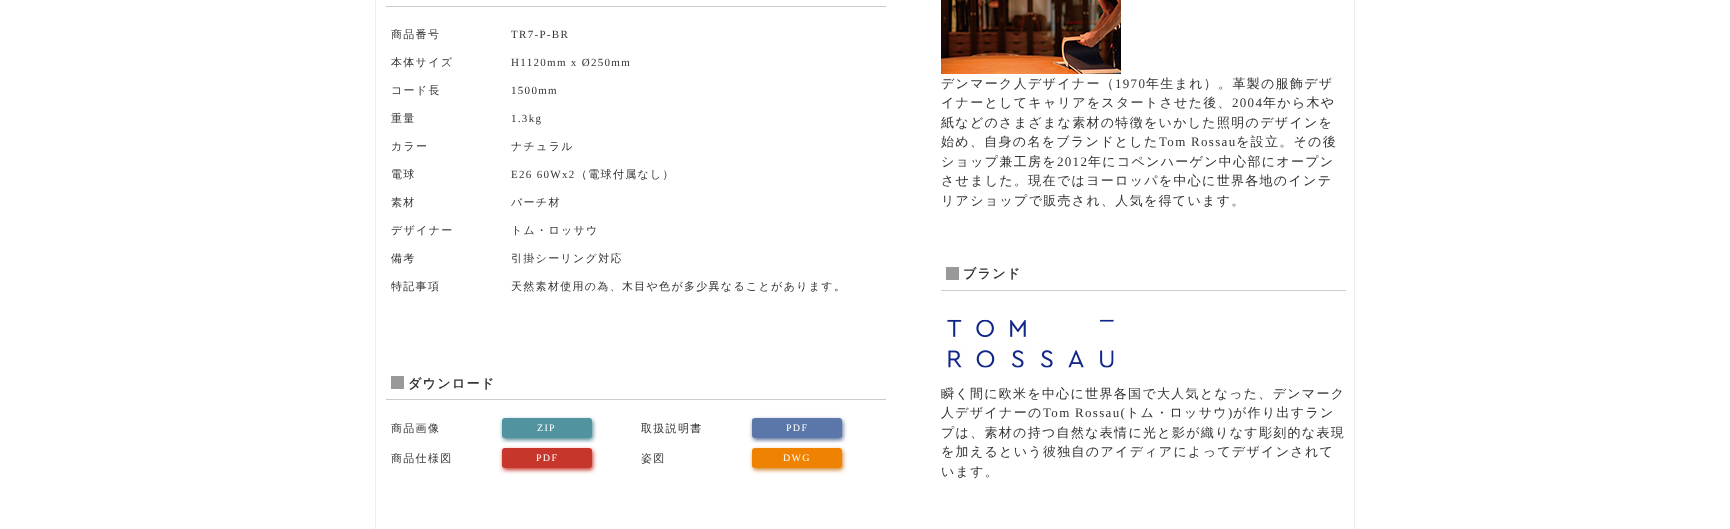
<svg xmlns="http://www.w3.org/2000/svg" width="1730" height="529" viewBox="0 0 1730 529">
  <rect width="100%" height="100%" fill="rgb(255,255,255)"/>
  <rect x="1354" y="0" width="1" height="529" fill="rgb(238,238,238)"/>
  <rect x="375" y="0" width="1" height="529" fill="rgb(238,238,238)"/>
  <rect x="386" y="6" width="500" height="1" fill="rgb(204,204,204)"/>
  <text x="391" y="38" font-family="WenQuanYi Zen Hei" font-size="11" font-weight="500" letter-spacing="1.3" fill="rgb(51,51,51)">商品番号</text>
  <text x="511" y="38" font-family="Liberation Serif" font-size="11" letter-spacing="1.3" fill="rgb(51,51,51)">TR7-P-BR</text>
  <text x="391" y="66" font-family="WenQuanYi Zen Hei" font-size="11" font-weight="500" letter-spacing="1.3" fill="rgb(51,51,51)">本体サイズ</text>
  <text x="511" y="66" font-family="Liberation Serif" font-size="11" letter-spacing="1.3" fill="rgb(51,51,51)">H1120mm x Ø250mm</text>
  <text x="391" y="94" font-family="WenQuanYi Zen Hei" font-size="11" font-weight="500" letter-spacing="1.3" fill="rgb(51,51,51)">コード長</text>
  <text x="511" y="94" font-family="Liberation Serif" font-size="11" letter-spacing="1.3" fill="rgb(51,51,51)">1500mm</text>
  <text x="391" y="122" font-family="WenQuanYi Zen Hei" font-size="11" font-weight="500" letter-spacing="1.3" fill="rgb(51,51,51)">重量</text>
  <text x="511" y="122" font-family="Liberation Serif" font-size="11" letter-spacing="1.3" fill="rgb(51,51,51)">1.3kg</text>
  <g font-family="WenQuanYi Zen Hei" font-size="11" font-weight="500" letter-spacing="1.3" fill="rgb(51,51,51)">
    <text x="391" y="150">カラー</text>
    <text x="511" y="150">ナチュラル</text>
    <text x="391" y="178">電球</text>
  </g>
  <text x="511" y="178" font-family="Liberation Serif" font-size="11" letter-spacing="1.3" fill="rgb(51,51,51)">E26 60Wx2</text>
  <g font-family="WenQuanYi Zen Hei" font-size="11" font-weight="500" letter-spacing="1.3" fill="rgb(51,51,51)">
    <text x="576" y="178">（電球付属なし）</text>
    <text x="391" y="206">素材</text>
    <text x="511" y="206">バーチ材</text>
    <text x="391" y="234">デザイナー</text>
    <text x="511" y="234">トム・ロッサウ</text>
    <text x="391" y="262">備考</text>
    <text x="511" y="262">引掛シーリング対応</text>
    <text x="391" y="290">特記事項</text>
    <text x="511" y="290">天然素材使用の為、木目や色が多少異なることがあります。</text>
  </g>
  <image x="941" y="0" width="180" height="74" href="pic1.png"/>
  <text x="941" y="88" font-family="WenQuanYi Zen Hei" font-size="13" font-weight="500" letter-spacing="1.3" fill="rgb(51,51,51)">デンマーク人デザイナー（</text>
  <text x="1115" y="88" font-family="Liberation Serif" font-size="13" letter-spacing="1.3" fill="rgb(51,51,51)">1970</text>
  <g font-family="WenQuanYi Zen Hei" font-size="13" font-weight="500" letter-spacing="1.3" fill="rgb(51,51,51)">
    <text x="1146" y="88">年生まれ）。革製の服飾デザ</text>
    <text x="941" y="107">イナーとしてキャリアをスタートさせた後、</text>
  </g>
  <text x="1232" y="107" font-family="Liberation Serif" font-size="13" letter-spacing="1.3" fill="rgb(51,51,51)">2004</text>
  <g font-family="WenQuanYi Zen Hei" font-size="13" font-weight="500" letter-spacing="1.3" fill="rgb(51,51,51)">
    <text x="1263" y="107">年から木や</text>
    <text>
      <tspan x="941" y="127">紙などのさまざまな素材の特徴をいかした照明のデザインを</tspan>
      <tspan x="941" y="146">始め、自身の名をブランドとした</tspan>
    </text>
  </g>
  <text x="1159" y="146" font-family="Liberation Serif" font-size="13" letter-spacing="1.3" fill="rgb(51,51,51)">Tom Rossau</text>
  <g font-family="WenQuanYi Zen Hei" font-size="13" font-weight="500" letter-spacing="1.3" fill="rgb(51,51,51)">
    <text x="1236" y="146">を設立。その後</text>
    <text x="941" y="166">ショップ兼工房を</text>
  </g>
  <text x="1057" y="166" font-family="Liberation Serif" font-size="13" letter-spacing="1.3" fill="rgb(51,51,51)">2012</text>
  <g font-family="WenQuanYi Zen Hei" font-size="13" font-weight="500" letter-spacing="1.3" fill="rgb(51,51,51)">
    <text x="1088" y="166">年にコペンハーゲン中心部にオープン</text>
    <text>
      <tspan x="941" y="185">させました。現在ではヨーロッパを中心に世界各地のインテ</tspan>
      <tspan x="941" y="205">リアショップで販売され、人気を得ています。</tspan>
    </text>
  </g>
  <rect x="941" y="290" width="405" height="1" fill="rgb(204,204,204)"/>
  <rect x="946" y="267" width="13" height="13" fill="rgb(153,153,153)"/>
  <text x="963" y="278" font-family="WenQuanYi Zen Hei" font-size="13" font-weight="bold" letter-spacing="1.3" fill="rgb(51,51,51)">ブランド</text>
  <image x="947" y="319" width="169" height="49" href="pic2.png"/>
  <g font-family="WenQuanYi Zen Hei" font-size="13" font-weight="500" letter-spacing="1.3" fill="rgb(51,51,51)">
    <text>
      <tspan x="941" y="398">瞬く間に欧米を中心に世界各国で大人気となった、デンマーク</tspan>
      <tspan x="941" y="417">人デザイナーの</tspan>
    </text>
  </g>
  <text x="1043" y="417" font-family="Liberation Serif" font-size="13" letter-spacing="1.3" fill="rgb(51,51,51)">Tom Rossau(</text>
  <text x="1126" y="417" font-family="WenQuanYi Zen Hei" font-size="13" font-weight="500" letter-spacing="1.3" fill="rgb(51,51,51)">トム・ロッサウ</text>
  <text x="1228" y="417" font-family="Liberation Serif" font-size="13" letter-spacing="1.3" fill="rgb(51,51,51)">)</text>
  <g font-family="WenQuanYi Zen Hei" font-size="13" font-weight="500" letter-spacing="1.3" fill="rgb(51,51,51)">
    <text x="1233" y="417">が作り出すラン</text>
    <text>
      <tspan x="941" y="437">プは、素材の持つ自然な表情に光と影が織りなす彫刻的な表現</tspan>
      <tspan x="941" y="456">を加えるという彼独自のアイディアによってデザインされて</tspan>
      <tspan x="941" y="476">います。</tspan>
    </text>
  </g>
  <rect x="386" y="399" width="500" height="1" fill="rgb(204,204,204)"/>
  <rect x="391" y="376" width="13" height="13" fill="rgb(153,153,153)"/>
  <text x="408" y="388" font-family="WenQuanYi Zen Hei" font-size="13" font-weight="bold" letter-spacing="1.3" fill="rgb(51,51,51)">ダウンロード</text>
  <text x="391" y="432" font-family="WenQuanYi Zen Hei" font-size="11" font-weight="500" letter-spacing="1.3" fill="rgb(51,51,51)">商品画像</text>
  <rect x="503" y="420" width="90" height="20" rx="3" fill="rgb(74,132,143)" filter="blur(2px)"/>
  <rect x="502" y="418" width="90" height="20" rx="3" fill="rgb(81,147,159)"/>
  <text x="537" y="431" font-family="Liberation Serif" font-size="10" letter-spacing="1.3" fill="rgb(255,255,255)">ZIP</text>
  <text x="641" y="432" font-family="WenQuanYi Zen Hei" font-size="11" font-weight="500" letter-spacing="1.3" fill="rgb(51,51,51)">取扱説明書</text>
  <rect x="753" y="420" width="90" height="20" rx="3" fill="rgb(84,107,152)" filter="blur(2px)"/>
  <rect x="752" y="418" width="90" height="20" rx="3" fill="rgb(91,119,169)"/>
  <text x="786" y="431" font-family="Liberation Serif" font-size="10" letter-spacing="1.3" fill="rgb(255,255,255)">PDF</text>
  <text x="391" y="462" font-family="WenQuanYi Zen Hei" font-size="11" font-weight="500" letter-spacing="1.3" fill="rgb(51,51,51)">商品仕様図</text>
  <rect x="503" y="443" width="89" height="1" fill="rgb(255,255,255)"/>
  <rect x="503" y="450" width="90" height="20" rx="3" fill="rgb(198,54,43)" filter="blur(2px)"/>
  <rect x="502" y="448" width="90" height="20" rx="3" fill="rgb(198,54,43)"/>
  <text x="536" y="461" font-family="Liberation Serif" font-size="10" letter-spacing="1.3" fill="rgb(255,255,255)">PDF</text>
  <text x="641" y="462" font-family="WenQuanYi Zen Hei" font-size="11" font-weight="500" letter-spacing="1.3" fill="rgb(51,51,51)">姿図</text>
  <rect x="754" y="443" width="88" height="1" fill="rgb(255,255,255)"/>
  <rect x="753" y="450" width="90" height="20" rx="3" fill="rgb(212,132,44)" filter="blur(2px)"/>
  <rect x="752" y="448" width="90" height="20" rx="3" fill="rgb(239,130,0)"/>
  <text x="783" y="461" font-family="Liberation Serif" font-size="10" letter-spacing="1.3" fill="rgb(255,255,255)">DWG</text>
</svg>
